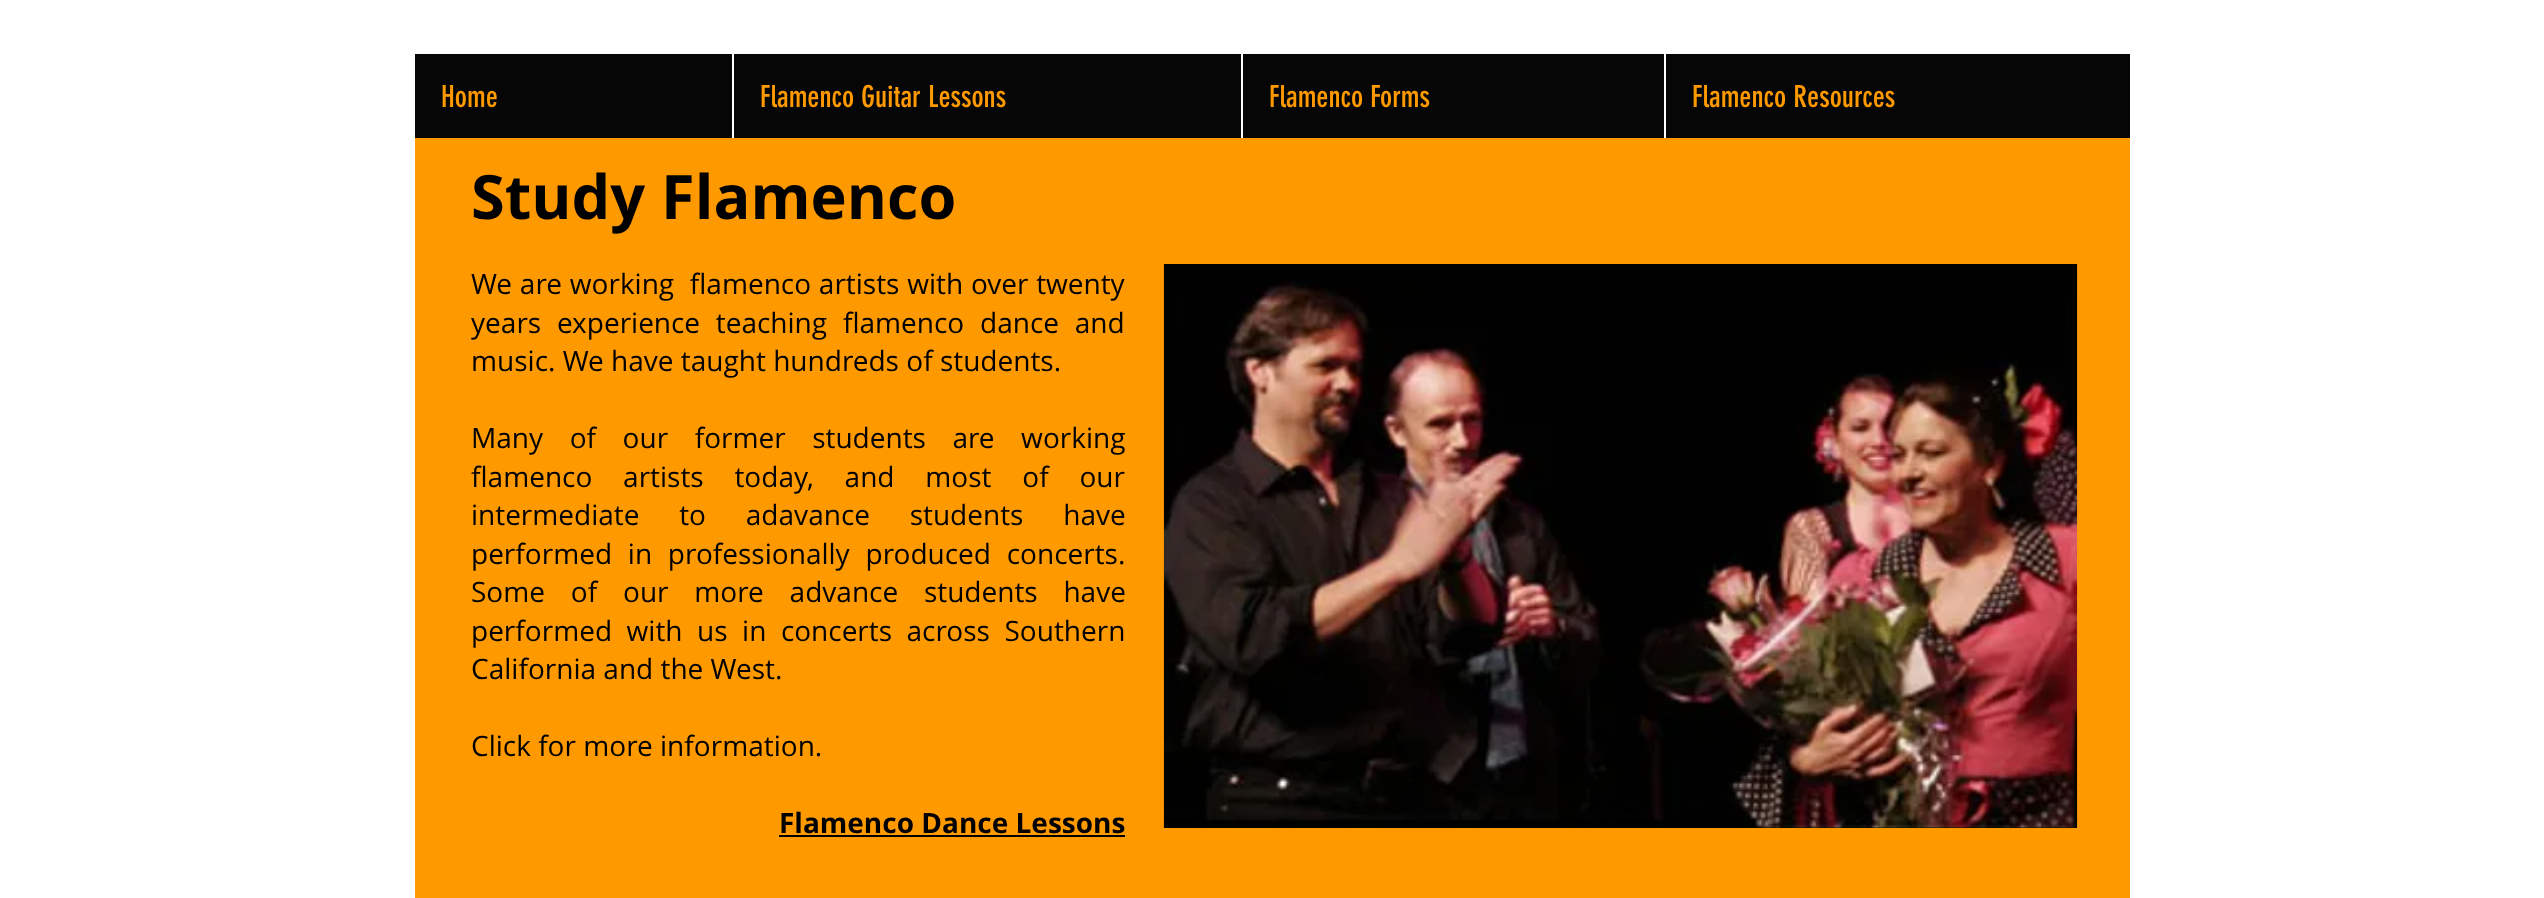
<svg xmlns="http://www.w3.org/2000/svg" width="2544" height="898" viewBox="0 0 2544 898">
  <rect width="100%" height="100%" fill="rgb(255,255,255)"/>
  <rect x="415" y="54" width="1715" height="84" fill="rgb(7,6,6)"/>
  <text x="441" y="107" font-family="'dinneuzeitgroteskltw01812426'" font-size="29.75" fill="rgb(255,153,0)">Home</text>
  <rect x="732" y="54" width="2" height="84" fill="rgb(255,255,255)"/>
  <text x="760" y="107" font-family="'dinneuzeitgroteskltw01812426'" font-size="29.75" fill="rgb(255,153,0)">Flamenco Guitar Lessons</text>
  <rect x="1241" y="54" width="2" height="84" fill="rgb(255,255,255)"/>
  <text x="1269" y="107" font-family="'dinneuzeitgroteskltw01812426'" font-size="29.75" fill="rgb(255,153,0)">Flamenco Forms</text>
  <rect x="1664" y="54" width="2" height="84" fill="rgb(255,255,255)"/>
  <text x="1692" y="107" font-family="'dinneuzeitgroteskltw01812426'" font-size="29.75" fill="rgb(255,153,0)">Flamenco Resources</text>
  <rect x="415" y="138" width="1715" height="760" fill="rgb(255,153,0)"/>
  <text x="471" y="219" font-family="Open Sans" font-size="61.25" font-weight="bold" fill="rgb(0,0,0)">Study Flamenco</text>
  <g font-family="Open Sans" font-size="28" fill="rgb(0,0,0)">
    <text xml:space="preserve"><tspan x="471" y="294" word-spacing="0.5">We are working  flamenco artists with over twenty</tspan><tspan x="471" y="333" word-spacing="8.5">years experience teaching flamenco dance and</tspan><tspan x="471" y="371">music. We have taught hundreds of students.</tspan></text>
    <text>
      <tspan x="471" y="448" word-spacing="19.25">Many of our former students are working</tspan>
      <tspan x="471" y="487" word-spacing="23.5">flamenco artists today, and most of our</tspan>
      <tspan x="471" y="525" word-spacing="32.5">intermediate to adavance students have</tspan>
      <tspan x="471" y="564" word-spacing="8.5">performed in professionally produced concerts.</tspan>
      <tspan x="471" y="602" word-spacing="18.5">Some of our more advance students have</tspan>
      <tspan x="471" y="641" word-spacing="7.25">performed with us in concerts across Southern</tspan>
      <tspan x="471" y="679">California and the West.</tspan>
    </text>
    <text x="471" y="756">Click for more information.</text>
  </g>
  <text x="779" y="833" font-family="Open Sans" font-size="28" font-weight="bold" fill="rgb(0,0,0)">Flamenco Dance Lessons</text>
  <rect x="779" y="835" width="346" height="2" fill="rgb(0,0,0)"/>
  <rect x="1164" y="264" width="913" height="564" fill="rgb(7,6,6)"/>
  <image x="1163" y="264" width="915" height="564" href="pic1.png"/>
</svg>
